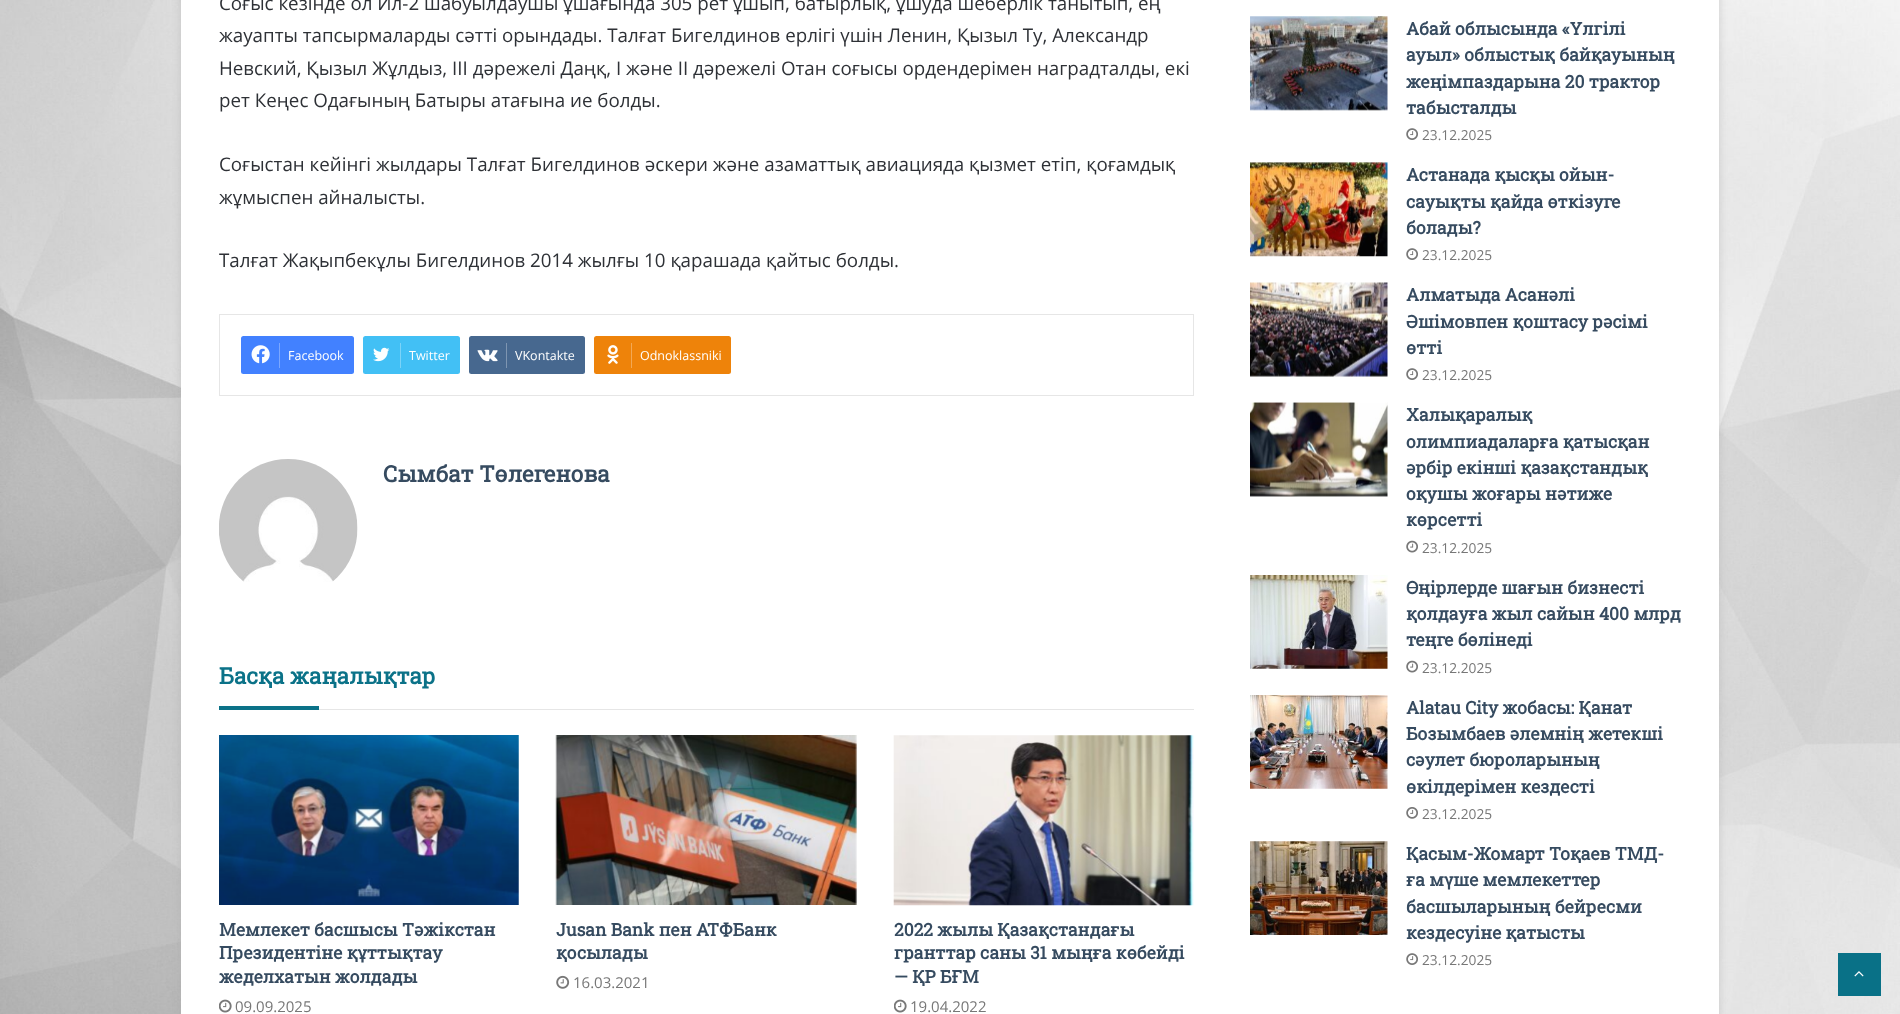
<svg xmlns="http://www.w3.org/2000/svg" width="1900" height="1014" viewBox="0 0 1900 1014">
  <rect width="100%" height="100%" fill="rgb(255,255,255)"/>
  <image x="0" y="0" width="1900" height="1014" href="pic1.png"/>
  <rect x="181" y="-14" width="1538" height="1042" fill="rgba(171,171,171,0.5)" filter="blur(4.5px)"/>
  <rect x="181" y="0" width="1538" height="1014" fill="rgb(255,255,255)"/>
  <g font-family="Open Sans" font-size="18.75" fill="rgb(46,49,54)">
    <text>
      <tspan x="219" y="10">Соғыс кезінде ол Ил-2 шабуылдаушы ұшағында 305 рет ұшып, батырлық, ұшуда шеберлік танытып, ең</tspan>
      <tspan x="219" y="42">жауапты тапсырмаларды сәтті орындады. Талғат Бигелдинов ерлігі үшін Ленин, Қызыл Ту, Александр</tspan>
      <tspan x="219" y="75">Невский, Қызыл Жұлдыз, III дәрежелі Даңқ, I және II дәрежелі Отан соғысы ордендерімен наградталды, екі</tspan>
      <tspan x="219" y="107">рет Кеңес Одағының Батыры атағына ие болды.</tspan>
    </text>
    <text>
      <tspan x="219" y="171">Соғыстан кейінгі жылдары Талғат Бигелдинов әскери және азаматтық авиацияда қызмет етіп, қоғамдық</tspan>
      <tspan x="219" y="204">жұмыспен айналысты.</tspan>
    </text>
    <text x="219" y="267">Талғат Жақыпбекұлы Бигелдинов 2014 жылғы 10 қарашада қайтыс болды.</text>
  </g>
  <rect x="219.5" y="314.5" width="974" height="81" fill="none" stroke="rgb(230,230,230)"/>
  <rect x="241" y="336" width="113" height="38" rx="2.5" fill="rgb(66,129,255)"/>
  <image x="251" y="345" width="19" height="19" href="pic2.png"/>
  <rect x="279" y="343" width="1" height="25" fill="rgb(123,167,255)"/>
  <text x="288" y="360" font-family="Open Sans" font-size="12.5" fill="rgb(255,255,255)">Facebook</text>
  <rect x="363" y="336" width="97" height="38" rx="2.5" fill="rgb(66,192,245)"/>
  <image x="373" y="347" width="17" height="15" href="pic3.png"/>
  <rect x="400" y="343" width="1" height="25" fill="rgb(123,211,248)"/>
  <text x="409" y="360" font-family="Open Sans" font-size="12.5" fill="rgb(255,255,255)">Twitter</text>
  <rect x="469" y="336" width="116" height="38" rx="2.5" fill="rgb(71,104,143)"/>
  <image x="477" y="349" width="21" height="13" href="pic4.png"/>
  <rect x="506" y="343" width="1" height="25" fill="rgb(126,149,177)"/>
  <text x="515" y="360" font-family="Open Sans" font-size="12.5" fill="rgb(255,255,255)">VKontakte</text>
  <rect x="594" y="336" width="137" height="38" rx="2.5" fill="rgb(238,131,10)"/>
  <image x="607" y="345" width="12" height="19" href="pic5.png"/>
  <rect x="631" y="343" width="1" height="25" fill="rgb(243,168,84)"/>
  <text x="640" y="360" font-family="Open Sans" font-size="12.5" fill="rgb(255,255,255)">Odnoklassniki</text>
  <image x="219" y="459" width="139" height="123" href="pic6.png"/>
  <text x="383" y="482" font-family="Roboto Slab" font-size="22.5" font-weight="bold" fill="rgb(54,75,96)">Сымбат Төлегенова</text>
  <rect x="319" y="709" width="875" height="1" fill="rgb(230,230,230)"/>
  <text x="219" y="684" font-family="Roboto Slab" font-size="22.5" font-weight="bold" fill="rgb(11,114,136)">Басқа жаңалықтар</text>
  <rect x="219" y="706" width="100" height="4" fill="rgb(11,114,136)"/>
  <image x="219" y="735" width="300" height="170" href="pic7.png"/>
  <g font-family="Roboto Slab" font-size="17.5" font-weight="bold" fill="rgb(54,75,96)">
    <text>
      <tspan x="219" y="936">Мемлекет басшысы Тәжікстан</tspan>
      <tspan x="219" y="959">Президентіне құттықтау</tspan>
      <tspan x="219" y="983">жеделхатын жолдады</tspan>
    </text>
  </g>
  <image x="219" y="999" width="13" height="14" href="pic8.png"/>
  <text x="235" y="1012" font-family="Open Sans" font-size="15" fill="rgb(119,119,119)">09.09.2025</text>
  <image x="555" y="735" width="302" height="170" href="pic9.png"/>
  <g font-family="Roboto Slab" font-size="17.5" font-weight="bold" fill="rgb(54,75,96)">
    <text>
      <tspan x="556" y="936">Jusan Bank пен АТФБанк</tspan>
      <tspan x="556" y="959">қосылады</tspan>
    </text>
  </g>
  <image x="556" y="975" width="14" height="14" href="pic10.png"/>
  <text x="573" y="988" font-family="Open Sans" font-size="15" fill="rgb(119,119,119)">16.03.2021</text>
  <image x="893" y="735" width="301" height="171" href="pic11.png"/>
  <g font-family="Roboto Slab" font-size="17.5" font-weight="bold" fill="rgb(54,75,96)">
    <text>
      <tspan x="894" y="936">2022 жылы Қазақстандағы</tspan>
      <tspan x="894" y="959">гранттар саны 31 мыңға көбейді</tspan>
      <tspan x="894" y="983">— ҚР БҒМ</tspan>
    </text>
  </g>
  <image x="894" y="999" width="13" height="14" href="pic8.png"/>
  <text x="910" y="1012" font-family="Open Sans" font-size="15" fill="rgb(119,119,119)">19.04.2022</text>
  <image x="1250" y="16" width="138" height="95" href="pic12.png"/>
  <g font-family="Roboto Slab" font-size="17.5" font-weight="bold" fill="rgb(54,75,96)">
    <text>
      <tspan x="1406" y="35">Абай облысында «Үлгілі</tspan>
      <tspan x="1406" y="61">ауыл» облыстық байқауының</tspan>
      <tspan x="1406" y="88">жеңімпаздарына 20 трактор</tspan>
      <tspan x="1406" y="114">табысталды</tspan>
    </text>
  </g>
  <image x="1406" y="128" width="12" height="12" href="pic13.png"/>
  <text x="1422" y="140" font-family="Open Sans" font-size="13.75" fill="rgb(119,119,119)">23.12.2025</text>
  <image x="1250" y="162" width="138" height="95" href="pic14.png"/>
  <g font-family="Roboto Slab" font-size="17.5" font-weight="bold" fill="rgb(54,75,96)">
    <text>
      <tspan x="1406" y="181">Астанада қысқы ойын-</tspan>
      <tspan x="1406" y="208">сауықты қайда өткізуге</tspan>
      <tspan x="1406" y="234">болады?</tspan>
    </text>
  </g>
  <image x="1406" y="248" width="12" height="12" href="pic13.png"/>
  <text x="1422" y="260" font-family="Open Sans" font-size="13.75" fill="rgb(119,119,119)">23.12.2025</text>
  <image x="1250" y="282" width="138" height="95" href="pic15.png"/>
  <g font-family="Roboto Slab" font-size="17.5" font-weight="bold" fill="rgb(54,75,96)">
    <text>
      <tspan x="1406" y="301">Алматыда Асанәлі</tspan>
      <tspan x="1406" y="328">Әшімовпен қоштасу рәсімі</tspan>
      <tspan x="1406" y="354">өтті</tspan>
    </text>
  </g>
  <image x="1406" y="368" width="12" height="12" href="pic13.png"/>
  <text x="1422" y="380" font-family="Open Sans" font-size="13.75" fill="rgb(119,119,119)">23.12.2025</text>
  <image x="1250" y="402" width="138" height="95" href="pic16.png"/>
  <g font-family="Roboto Slab" font-size="17.5" font-weight="bold" fill="rgb(54,75,96)">
    <text>
      <tspan x="1406" y="421">Халықаралық</tspan>
      <tspan x="1406" y="448">олимпиадаларға қатысқан</tspan>
      <tspan x="1406" y="474">әрбір екінші қазақстандық</tspan>
      <tspan x="1406" y="500">оқушы жоғары нәтиже</tspan>
      <tspan x="1406" y="526">көрсетті</tspan>
    </text>
  </g>
  <image x="1406" y="540" width="12" height="13" href="pic17.png"/>
  <text x="1422" y="553" font-family="Open Sans" font-size="13.75" fill="rgb(119,119,119)">23.12.2025</text>
  <image x="1250" y="575" width="138" height="94" href="pic18.png"/>
  <g font-family="Roboto Slab" font-size="17.5" font-weight="bold" fill="rgb(54,75,96)">
    <text>
      <tspan x="1406" y="594">Өңірлерде шағын бизнесті</tspan>
      <tspan x="1406" y="620">қолдауға жыл сайын 400 млрд</tspan>
      <tspan x="1406" y="646">теңге бөлінеді</tspan>
    </text>
  </g>
  <image x="1406" y="660" width="12" height="13" href="pic17.png"/>
  <text x="1422" y="673" font-family="Open Sans" font-size="13.75" fill="rgb(119,119,119)">23.12.2025</text>
  <image x="1250" y="695" width="138" height="94" href="pic19.png"/>
  <g font-family="Roboto Slab" font-size="17.5" font-weight="bold" fill="rgb(54,75,96)">
    <text>
      <tspan x="1406" y="714">Alatau City жобасы: Қанат</tspan>
      <tspan x="1406" y="740">Бозымбаев әлемнің жетекші</tspan>
      <tspan x="1406" y="766">сәулет бюроларының</tspan>
      <tspan x="1406" y="793">өкілдерімен кездесті</tspan>
    </text>
  </g>
  <image x="1406" y="807" width="12" height="12" href="pic20.png"/>
  <text x="1422" y="819" font-family="Open Sans" font-size="13.75" fill="rgb(119,119,119)">23.12.2025</text>
  <image x="1250" y="841" width="138" height="94" href="pic21.png"/>
  <g font-family="Roboto Slab" font-size="17.5" font-weight="bold" fill="rgb(54,75,96)">
    <text>
      <tspan x="1406" y="860">Қасым-Жомарт Тоқаев ТМД-</tspan>
      <tspan x="1406" y="886">ға мүше мемлекеттер</tspan>
      <tspan x="1406" y="913">басшыларының бейресми</tspan>
      <tspan x="1406" y="939">кездесуіне қатысты</tspan>
    </text>
  </g>
  <image x="1406" y="953" width="12" height="12" href="pic13.png"/>
  <text x="1422" y="965" font-family="Open Sans" font-size="13.75" fill="rgb(119,119,119)">23.12.2025</text>
  <rect x="1838" y="953" width="43" height="43" fill="rgb(9,113,135)"/>
  <image x="1854" y="971" width="10" height="6" href="pic22.png"/>
</svg>
